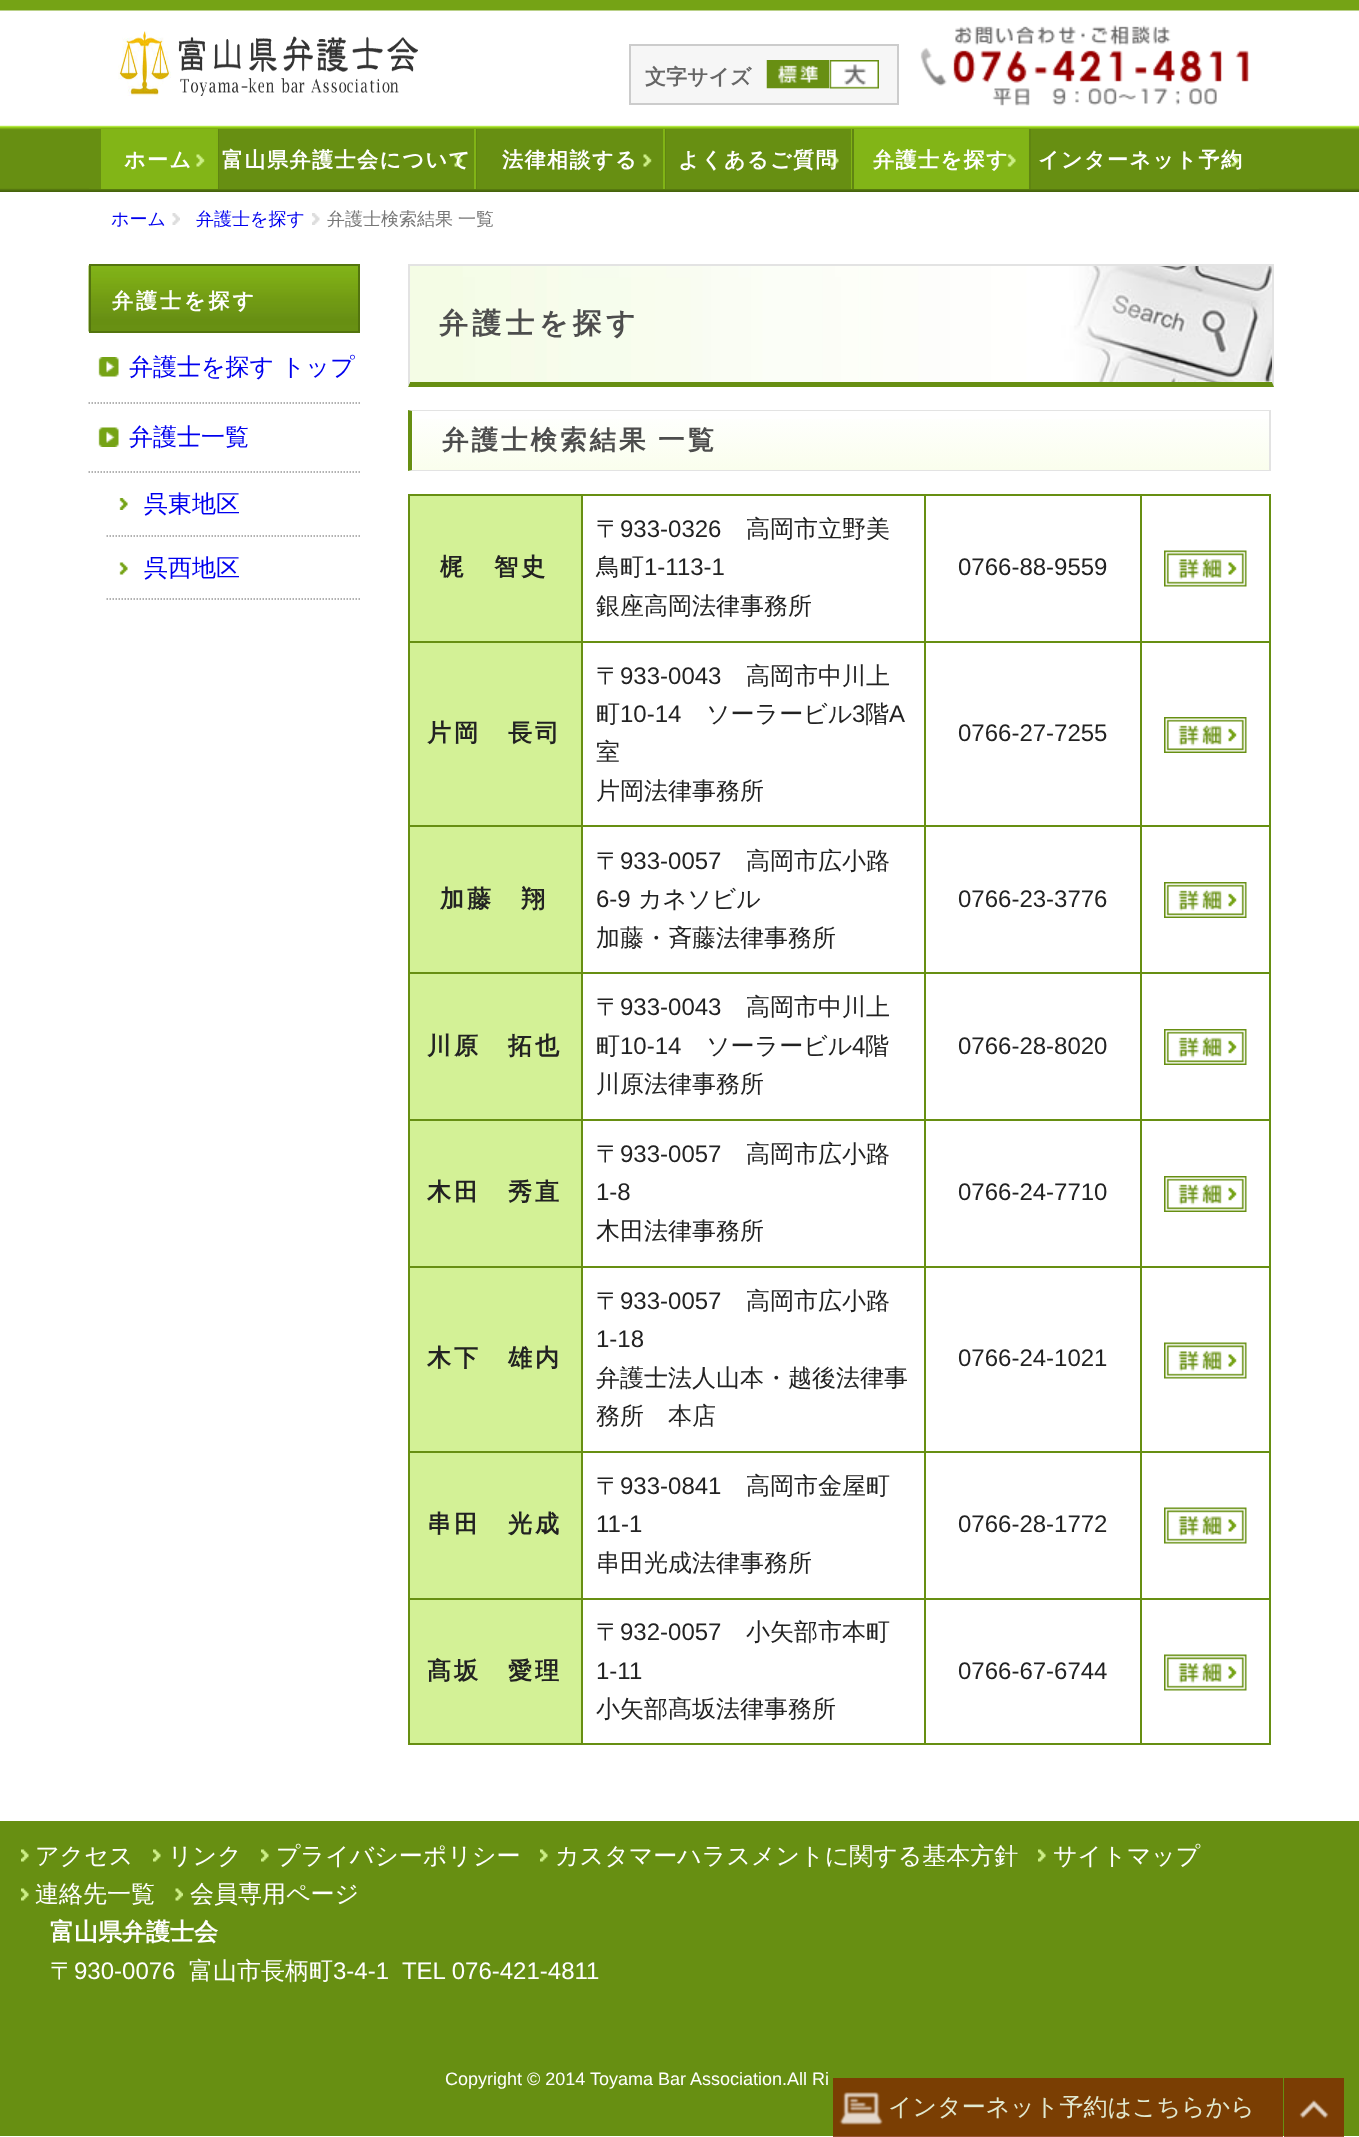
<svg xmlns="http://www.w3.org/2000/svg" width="1359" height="2137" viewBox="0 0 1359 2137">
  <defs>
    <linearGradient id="g1" gradientUnits="userSpaceOnUse" x1="413" y1="411" x2="413" y2="470"><stop offset="0" stop-color="rgb(255,255,255)"/><stop offset="1" stop-color="rgb(250,254,237)"/></linearGradient>
  </defs>
  <rect width="100%" height="100%" fill="rgb(255,255,255)"/>
  <rect x="1284" y="2136" width="60" height="1" fill="rgb(153,84,51)"/>
  <image x="0" y="0" width="1359" height="192" href="pic1.png"/>
  <image x="118" y="31" width="300" height="65" href="pic2.png"/>
  <rect x="630" y="45" width="268" height="59" fill="rgb(246,246,246)" stroke="rgb(204,204,204)" stroke-width="2"/>
  <text x="645" y="84" font-family="WenQuanYi Zen Hei" font-size="21" font-weight="bold" fill="rgb(102,102,102)">文字サイズ</text>
  <image x="766" y="60" width="64" height="29" href="pic3.png"/>
  <image x="829" y="60" width="50" height="29" href="pic4.png"/>
  <image x="920" y="25" width="329" height="81" href="pic5.png"/>
  <rect x="89" y="129" width="1170" height="60" fill="rgb(103,143,18)"/>
  <rect x="216" y="129" width="2" height="60" fill="rgb(129,180,22)"/>
  <rect x="101" y="129" width="115" height="60" fill="rgb(130,181,23)"/>
  <image x="196" y="154" width="9" height="13" href="pic6.png"/>
  <text x="124" y="167" font-family="WenQuanYi Zen Hei" font-size="21" font-weight="bold" letter-spacing="1.5" fill="rgb(255,255,255)">ホーム</text>
  <rect x="474" y="129" width="2" height="60" fill="rgb(129,180,22)"/>
  <rect x="218" y="129" width="1" height="60" fill="rgb(96,133,18)"/>
  <image x="454" y="154" width="9" height="13" href="pic7.png"/>
  <text x="222" y="167" font-family="WenQuanYi Zen Hei" font-size="21" font-weight="bold" letter-spacing="1.5" fill="rgb(255,255,255)">富山県弁護士会について</text>
  <rect x="663" y="129" width="2" height="60" fill="rgb(129,180,22)"/>
  <rect x="476" y="129" width="1" height="60" fill="rgb(96,133,18)"/>
  <image x="643" y="154" width="9" height="13" href="pic8.png"/>
  <text x="502" y="167" font-family="WenQuanYi Zen Hei" font-size="21" font-weight="bold" letter-spacing="1.5" fill="rgb(255,255,255)">法律相談する</text>
  <rect x="851" y="129" width="1" height="60" fill="rgb(129,180,22)"/>
  <rect x="665" y="129" width="1" height="60" fill="rgb(96,133,18)"/>
  <image x="830" y="154" width="9" height="13" href="pic9.png"/>
  <text x="678" y="167" font-family="WenQuanYi Zen Hei" font-size="21" font-weight="bold" letter-spacing="1.5" fill="rgb(255,255,255)">よくあるご質問</text>
  <rect x="1028" y="129" width="1" height="60" fill="rgb(129,180,22)"/>
  <rect x="852" y="129" width="2" height="60" fill="rgb(96,133,18)"/>
  <rect x="854" y="129" width="174" height="60" fill="rgb(130,181,23)"/>
  <image x="1007" y="154" width="9" height="13" href="pic10.png"/>
  <text x="873" y="167" font-family="WenQuanYi Zen Hei" font-size="21" font-weight="bold" letter-spacing="1.5" fill="rgb(255,255,255)">弁護士を探す</text>
  <rect x="1029" y="129" width="2" height="60" fill="rgb(96,133,18)"/>
  <image x="1231" y="154" width="9" height="13" href="pic7.png"/>
  <text x="1038" y="167" font-family="WenQuanYi Zen Hei" font-size="21" font-weight="bold" letter-spacing="1.5" fill="rgb(255,255,255)">インターネット予約</text>
  <image x="172" y="213" width="8" height="12" href="pic11.png"/>
  <text x="111" y="225" font-family="WenQuanYi Zen Hei" font-size="18" font-weight="500" fill="rgb(0,0,238)">ホーム</text>
  <image x="312" y="213" width="8" height="12" href="pic12.png"/>
  <text x="196" y="225" font-family="WenQuanYi Zen Hei" font-size="18" font-weight="500" fill="rgb(0,0,238)">弁護士を探す</text>
  <g font-family="WenQuanYi Zen Hei" font-size="18" font-weight="500" fill="rgb(119,119,119)">
    <text x="327" y="225">弁護士検索結果</text>
    <text x="458" y="225">一覧</text>
  </g>
  <image x="88" y="265" width="270" height="67" href="pic13.png"/>
  <rect x="90" y="265" width="269" height="67" fill="none" stroke="rgb(83,116,14)" stroke-width="2"/>
  <text x="112" y="308" font-family="WenQuanYi Zen Hei" font-size="21" font-weight="bold" letter-spacing="3" fill="rgb(255,255,255)">弁護士を探す</text>
  <image x="98" y="357" width="21" height="20" href="pic14.png"/>
  <path d="M88.5 403H360" fill="none" stroke="rgb(153,153,153)" stroke-width="1.5" stroke-dasharray="1.5 1.5"/>
  <g font-family="WenQuanYi Zen Hei" font-size="24" font-weight="500" fill="rgb(0,0,238)">
    <text x="129" y="375">弁護士を探す</text>
    <text x="281" y="375">トップ</text>
  </g>
  <image x="98" y="427" width="21" height="20" href="pic15.png"/>
  <path d="M88.5 472H360" fill="none" stroke="rgb(153,153,153)" stroke-width="1.5" stroke-dasharray="1.5 1.5"/>
  <text x="129" y="445" font-family="WenQuanYi Zen Hei" font-size="24" font-weight="500" fill="rgb(0,0,238)">弁護士一覧</text>
  <image x="119" y="498" width="9" height="12" href="pic16.png"/>
  <path d="M106.5 536H360" fill="none" stroke="rgb(153,153,153)" stroke-width="1.5" stroke-dasharray="1.5 1.5"/>
  <text x="144" y="512" font-family="WenQuanYi Zen Hei" font-size="24" font-weight="500" fill="rgb(0,0,238)">呉東地区</text>
  <image x="119" y="562" width="9" height="13" href="pic17.png"/>
  <path d="M106.5 599H360" fill="none" stroke="rgb(153,153,153)" stroke-width="1.5" stroke-dasharray="1.5 1.5"/>
  <text x="144" y="576" font-family="WenQuanYi Zen Hei" font-size="24" font-weight="500" fill="rgb(0,0,238)">呉西地区</text>
  <image x="408" y="266" width="864" height="120" href="pic18.png"/>
  <rect x="408" y="264" width="866" height="2" fill="rgb(227,227,227)"/>
  <path d="M1274 264V387L1272 382V266Z" fill="rgb(227,227,227)"/>
  <path d="M1274 387H408L410 382H1272Z" fill="rgb(103,143,18)"/>
  <path d="M408 387V264L410 266V382Z" fill="rgb(227,227,227)"/>
  <text x="439" y="333" font-family="WenQuanYi Zen Hei" font-size="28.75" font-weight="bold" letter-spacing="4.5" fill="rgb(77,77,77)">弁護士を探す</text>
  <rect x="413" y="419" width="856" height="51" fill="url(#g1)"/>
  <path d="M408 410H1270L1269 411H412Z" fill="rgb(227,227,227)"/>
  <rect x="1269" y="410" width="2" height="61" fill="rgb(227,227,227)"/>
  <path d="M1270 471H408L412 470H1269Z" fill="rgb(227,227,227)"/>
  <path d="M408 471V410L412 411V470Z" fill="rgb(103,143,18)"/>
  <g font-family="WenQuanYi Zen Hei" font-size="26.5" font-weight="bold" letter-spacing="3" fill="rgb(77,77,77)">
    <text x="442" y="449">弁護士検索結果</text>
    <text x="658" y="449">一覧</text>
  </g>
  <rect x="408" y="494" width="863" height="2" fill="rgb(103,143,18)"/>
  <rect x="408" y="641" width="863" height="2" fill="rgb(103,143,18)"/>
  <rect x="408" y="825" width="863" height="2" fill="rgb(103,143,18)"/>
  <rect x="408" y="972" width="863" height="2" fill="rgb(103,143,18)"/>
  <rect x="408" y="1119" width="863" height="2" fill="rgb(103,143,18)"/>
  <rect x="408" y="1266" width="863" height="2" fill="rgb(103,143,18)"/>
  <rect x="408" y="1451" width="863" height="2" fill="rgb(103,143,18)"/>
  <rect x="408" y="1598" width="863" height="2" fill="rgb(103,143,18)"/>
  <rect x="1269" y="1598" width="2" height="147" fill="rgb(103,143,18)"/>
  <rect x="1269" y="1451" width="2" height="148" fill="rgb(103,143,18)"/>
  <rect x="1269" y="1266" width="2" height="186" fill="rgb(103,143,18)"/>
  <rect x="1269" y="1119" width="2" height="149" fill="rgb(103,143,18)"/>
  <rect x="1269" y="972" width="2" height="149" fill="rgb(103,143,18)"/>
  <rect x="1269" y="825" width="2" height="149" fill="rgb(103,143,18)"/>
  <rect x="1269" y="641" width="2" height="186" fill="rgb(103,143,18)"/>
  <rect x="1269" y="494" width="2" height="148" fill="rgb(103,143,18)"/>
  <image x="1164" y="550" width="83" height="37" href="pic19.png"/>
  <rect x="410" y="496" width="171" height="145" fill="rgb(211,241,150)"/>
  <rect x="1140" y="1743" width="131" height="2" fill="rgb(103,143,18)"/>
  <rect x="1140" y="1598" width="2" height="147" fill="rgb(103,143,18)"/>
  <rect x="924" y="1743" width="218" height="2" fill="rgb(103,143,18)"/>
  <rect x="924" y="1598" width="2" height="147" fill="rgb(103,143,18)"/>
  <rect x="581" y="1743" width="345" height="2" fill="rgb(103,143,18)"/>
  <rect x="581" y="1598" width="2" height="147" fill="rgb(103,143,18)"/>
  <rect x="581" y="1451" width="2" height="148" fill="rgb(103,143,18)"/>
  <rect x="581" y="1266" width="2" height="186" fill="rgb(103,143,18)"/>
  <rect x="581" y="1119" width="2" height="149" fill="rgb(103,143,18)"/>
  <rect x="581" y="972" width="2" height="149" fill="rgb(103,143,18)"/>
  <rect x="581" y="825" width="2" height="149" fill="rgb(103,143,18)"/>
  <rect x="581" y="641" width="2" height="186" fill="rgb(103,143,18)"/>
  <rect x="581" y="494" width="2" height="148" fill="rgb(103,143,18)"/>
  <rect x="408" y="1743" width="174" height="2" fill="rgb(103,143,18)"/>
  <rect x="408" y="1598" width="2" height="147" fill="rgb(103,143,18)"/>
  <rect x="408" y="1451" width="2" height="148" fill="rgb(103,143,18)"/>
  <rect x="408" y="1266" width="2" height="186" fill="rgb(103,143,18)"/>
  <rect x="408" y="1119" width="2" height="149" fill="rgb(103,143,18)"/>
  <rect x="408" y="972" width="2" height="149" fill="rgb(103,143,18)"/>
  <rect x="408" y="825" width="2" height="149" fill="rgb(103,143,18)"/>
  <rect x="408" y="641" width="2" height="186" fill="rgb(103,143,18)"/>
  <rect x="408" y="494" width="2" height="148" fill="rgb(103,143,18)"/>
  <text x="440" y="575" font-family="WenQuanYi Zen Hei" font-size="24" font-weight="bold" letter-spacing="3" fill="rgb(34,34,34)">梶　智史</text>
  <rect x="924" y="1451" width="2" height="148" fill="rgb(103,143,18)"/>
  <rect x="924" y="1266" width="2" height="186" fill="rgb(103,143,18)"/>
  <rect x="924" y="1119" width="2" height="149" fill="rgb(103,143,18)"/>
  <rect x="924" y="972" width="2" height="149" fill="rgb(103,143,18)"/>
  <rect x="924" y="825" width="2" height="149" fill="rgb(103,143,18)"/>
  <rect x="924" y="641" width="2" height="186" fill="rgb(103,143,18)"/>
  <rect x="924" y="494" width="2" height="148" fill="rgb(103,143,18)"/>
  <text x="596" y="537" font-family="WenQuanYi Zen Hei" font-size="24" font-weight="500" fill="rgb(34,34,34)">〒</text>
  <text x="620" y="537" font-family="Liberation Sans" font-size="24" fill="rgb(34,34,34)">933-0326</text>
  <g font-family="WenQuanYi Zen Hei" font-size="24" font-weight="500" fill="rgb(34,34,34)">
    <text x="746" y="537">高岡市立野美</text>
    <text x="596" y="575">鳥町</text>
  </g>
  <text x="644" y="575" font-family="Liberation Sans" font-size="24" fill="rgb(34,34,34)">1-113-1</text>
  <text x="596" y="614" font-family="WenQuanYi Zen Hei" font-size="24" font-weight="500" fill="rgb(34,34,34)">銀座高岡法律事務所</text>
  <rect x="1140" y="1451" width="2" height="148" fill="rgb(103,143,18)"/>
  <rect x="1140" y="1266" width="2" height="186" fill="rgb(103,143,18)"/>
  <rect x="1140" y="1119" width="2" height="149" fill="rgb(103,143,18)"/>
  <rect x="1140" y="972" width="2" height="149" fill="rgb(103,143,18)"/>
  <rect x="1140" y="825" width="2" height="149" fill="rgb(103,143,18)"/>
  <rect x="1140" y="641" width="2" height="186" fill="rgb(103,143,18)"/>
  <rect x="1140" y="494" width="2" height="148" fill="rgb(103,143,18)"/>
  <text x="958" y="575" font-family="Liberation Sans" font-size="24" fill="rgb(34,34,34)">0766-88-9559</text>
  <image x="1164" y="717" width="83" height="36" href="pic20.png"/>
  <rect x="410" y="643" width="171" height="182" fill="rgb(211,241,150)"/>
  <text x="427" y="741" font-family="WenQuanYi Zen Hei" font-size="24" font-weight="bold" letter-spacing="3" fill="rgb(34,34,34)">片岡　長司</text>
  <text x="596" y="684" font-family="WenQuanYi Zen Hei" font-size="24" font-weight="500" fill="rgb(34,34,34)">〒</text>
  <text x="620" y="684" font-family="Liberation Sans" font-size="24" fill="rgb(34,34,34)">933-0043</text>
  <g font-family="WenQuanYi Zen Hei" font-size="24" font-weight="500" fill="rgb(34,34,34)">
    <text x="746" y="684">高岡市中川上</text>
    <text x="596" y="722">町</text>
  </g>
  <text x="620" y="722" font-family="Liberation Sans" font-size="24" fill="rgb(34,34,34)">10-14</text>
  <text x="706" y="722" font-family="WenQuanYi Zen Hei" font-size="24" font-weight="500" fill="rgb(34,34,34)">ソーラービル</text>
  <text x="852" y="722" font-family="Liberation Sans" font-size="24" fill="rgb(34,34,34)">3</text>
  <text x="865" y="722" font-family="WenQuanYi Zen Hei" font-size="24" font-weight="500" fill="rgb(34,34,34)">階</text>
  <text x="889" y="722" font-family="Liberation Sans" font-size="24" fill="rgb(34,34,34)">A</text>
  <g font-family="WenQuanYi Zen Hei" font-size="24" font-weight="500" fill="rgb(34,34,34)">
    <text>
      <tspan x="596" y="760">室</tspan>
      <tspan x="596" y="799">片岡法律事務所</tspan>
    </text>
  </g>
  <text x="958" y="741" font-family="Liberation Sans" font-size="24" fill="rgb(34,34,34)">0766-27-7255</text>
  <image x="1164" y="882" width="83" height="36" href="pic20.png"/>
  <rect x="410" y="827" width="171" height="145" fill="rgb(211,241,150)"/>
  <text x="440" y="907" font-family="WenQuanYi Zen Hei" font-size="24" font-weight="bold" letter-spacing="3" fill="rgb(34,34,34)">加藤　翔</text>
  <text x="596" y="869" font-family="WenQuanYi Zen Hei" font-size="24" font-weight="500" fill="rgb(34,34,34)">〒</text>
  <text x="620" y="869" font-family="Liberation Sans" font-size="24" fill="rgb(34,34,34)">933-0057</text>
  <text x="746" y="869" font-family="WenQuanYi Zen Hei" font-size="24" font-weight="500" fill="rgb(34,34,34)">高岡市広小路</text>
  <text x="596" y="907" font-family="Liberation Sans" font-size="24" fill="rgb(34,34,34)">6-9</text>
  <g font-family="WenQuanYi Zen Hei" font-size="24" font-weight="500" fill="rgb(34,34,34)">
    <text x="638" y="907">カネソビル</text>
    <text x="596" y="946">加藤・斉藤法律事務所</text>
  </g>
  <text x="958" y="907" font-family="Liberation Sans" font-size="24" fill="rgb(34,34,34)">0766-23-3776</text>
  <image x="1164" y="1029" width="83" height="36" href="pic20.png"/>
  <rect x="410" y="974" width="171" height="145" fill="rgb(211,241,150)"/>
  <text x="427" y="1054" font-family="WenQuanYi Zen Hei" font-size="24" font-weight="bold" letter-spacing="3" fill="rgb(34,34,34)">川原　拓也</text>
  <text x="596" y="1015" font-family="WenQuanYi Zen Hei" font-size="24" font-weight="500" fill="rgb(34,34,34)">〒</text>
  <text x="620" y="1015" font-family="Liberation Sans" font-size="24" fill="rgb(34,34,34)">933-0043</text>
  <g font-family="WenQuanYi Zen Hei" font-size="24" font-weight="500" fill="rgb(34,34,34)">
    <text x="746" y="1015">高岡市中川上</text>
    <text x="596" y="1054">町</text>
  </g>
  <text x="620" y="1054" font-family="Liberation Sans" font-size="24" fill="rgb(34,34,34)">10-14</text>
  <text x="706" y="1054" font-family="WenQuanYi Zen Hei" font-size="24" font-weight="500" fill="rgb(34,34,34)">ソーラービル</text>
  <text x="852" y="1054" font-family="Liberation Sans" font-size="24" fill="rgb(34,34,34)">4</text>
  <g font-family="WenQuanYi Zen Hei" font-size="24" font-weight="500" fill="rgb(34,34,34)">
    <text x="865" y="1054">階</text>
    <text x="596" y="1092">川原法律事務所</text>
  </g>
  <text x="958" y="1054" font-family="Liberation Sans" font-size="24" fill="rgb(34,34,34)">0766-28-8020</text>
  <image x="1164" y="1176" width="83" height="36" href="pic20.png"/>
  <rect x="410" y="1121" width="171" height="145" fill="rgb(211,241,150)"/>
  <text x="427" y="1200" font-family="WenQuanYi Zen Hei" font-size="24" font-weight="bold" letter-spacing="3" fill="rgb(34,34,34)">木田　秀直</text>
  <text x="596" y="1162" font-family="WenQuanYi Zen Hei" font-size="24" font-weight="500" fill="rgb(34,34,34)">〒</text>
  <text x="620" y="1162" font-family="Liberation Sans" font-size="24" fill="rgb(34,34,34)">933-0057</text>
  <text x="746" y="1162" font-family="WenQuanYi Zen Hei" font-size="24" font-weight="500" fill="rgb(34,34,34)">高岡市広小路</text>
  <text x="596" y="1200" font-family="Liberation Sans" font-size="24" fill="rgb(34,34,34)">1-8</text>
  <text x="596" y="1239" font-family="WenQuanYi Zen Hei" font-size="24" font-weight="500" fill="rgb(34,34,34)">木田法律事務所</text>
  <text x="958" y="1200" font-family="Liberation Sans" font-size="24" fill="rgb(34,34,34)">0766-24-7710</text>
  <image x="1164" y="1342" width="83" height="37" href="pic19.png"/>
  <rect x="410" y="1268" width="171" height="183" fill="rgb(211,241,150)"/>
  <text x="427" y="1366" font-family="WenQuanYi Zen Hei" font-size="24" font-weight="bold" letter-spacing="3" fill="rgb(34,34,34)">木下　雄内</text>
  <text x="596" y="1309" font-family="WenQuanYi Zen Hei" font-size="24" font-weight="500" fill="rgb(34,34,34)">〒</text>
  <text x="620" y="1309" font-family="Liberation Sans" font-size="24" fill="rgb(34,34,34)">933-0057</text>
  <text x="746" y="1309" font-family="WenQuanYi Zen Hei" font-size="24" font-weight="500" fill="rgb(34,34,34)">高岡市広小路</text>
  <text x="596" y="1347" font-family="Liberation Sans" font-size="24" fill="rgb(34,34,34)">1-18</text>
  <g font-family="WenQuanYi Zen Hei" font-size="24" font-weight="500" fill="rgb(34,34,34)">
    <text>
      <tspan x="596" y="1386">弁護士法人山本・越後法律事</tspan>
      <tspan x="596" y="1424">務所　本店</tspan>
    </text>
  </g>
  <text x="958" y="1366" font-family="Liberation Sans" font-size="24" fill="rgb(34,34,34)">0766-24-1021</text>
  <image x="1164" y="1507" width="83" height="37" href="pic19.png"/>
  <rect x="410" y="1453" width="171" height="145" fill="rgb(211,241,150)"/>
  <text x="427" y="1532" font-family="WenQuanYi Zen Hei" font-size="24" font-weight="bold" letter-spacing="3" fill="rgb(34,34,34)">串田　光成</text>
  <text x="596" y="1494" font-family="WenQuanYi Zen Hei" font-size="24" font-weight="500" fill="rgb(34,34,34)">〒</text>
  <text x="620" y="1494" font-family="Liberation Sans" font-size="24" fill="rgb(34,34,34)">933-0841</text>
  <text x="746" y="1494" font-family="WenQuanYi Zen Hei" font-size="24" font-weight="500" fill="rgb(34,34,34)">高岡市金屋町</text>
  <text x="596" y="1532" font-family="Liberation Sans" font-size="24" fill="rgb(34,34,34)">11-1</text>
  <text x="596" y="1571" font-family="WenQuanYi Zen Hei" font-size="24" font-weight="500" fill="rgb(34,34,34)">串田光成法律事務所</text>
  <text x="958" y="1532" font-family="Liberation Sans" font-size="24" fill="rgb(34,34,34)">0766-28-1772</text>
  <image x="1164" y="1654" width="83" height="37" href="pic19.png"/>
  <rect x="410" y="1600" width="171" height="143" fill="rgb(211,241,150)"/>
  <text x="427" y="1679" font-family="WenQuanYi Zen Hei" font-size="24" font-weight="bold" letter-spacing="3" fill="rgb(34,34,34)">髙坂　愛理</text>
  <text x="596" y="1640" font-family="WenQuanYi Zen Hei" font-size="24" font-weight="500" fill="rgb(34,34,34)">〒</text>
  <text x="620" y="1640" font-family="Liberation Sans" font-size="24" fill="rgb(34,34,34)">932-0057</text>
  <text x="746" y="1640" font-family="WenQuanYi Zen Hei" font-size="24" font-weight="500" fill="rgb(34,34,34)">小矢部市本町</text>
  <text x="596" y="1679" font-family="Liberation Sans" font-size="24" fill="rgb(34,34,34)">1-11</text>
  <text x="596" y="1717" font-family="WenQuanYi Zen Hei" font-size="24" font-weight="500" fill="rgb(34,34,34)">小矢部髙坂法律事務所</text>
  <text x="958" y="1679" font-family="Liberation Sans" font-size="24" fill="rgb(34,34,34)">0766-67-6744</text>
  <rect x="0" y="1821" width="1359" height="315" fill="rgb(103,143,18)"/>
  <rect x="1284" y="2078" width="60" height="58" fill="rgb(123,61,4)"/>
  <image x="21" y="1849" width="8" height="13" href="pic21.png"/>
  <text x="35" y="1864" font-family="WenQuanYi Zen Hei" font-size="24" font-weight="500" fill="rgb(255,255,255)">アクセス</text>
  <image x="153" y="1849" width="8" height="13" href="pic21.png"/>
  <text x="168" y="1864" font-family="WenQuanYi Zen Hei" font-size="24" font-weight="500" fill="rgb(255,255,255)">リンク</text>
  <image x="261" y="1849" width="8" height="13" href="pic22.png"/>
  <text x="276" y="1864" font-family="WenQuanYi Zen Hei" font-size="24" font-weight="500" fill="rgb(255,255,255)">プライバシーポリシー</text>
  <image x="540" y="1849" width="8" height="13" href="pic21.png"/>
  <text x="555" y="1864" font-family="WenQuanYi Zen Hei" font-size="24" font-weight="500" fill="rgb(255,255,255)">カスタマーハラスメントに関する基本方針</text>
  <image x="1038" y="1849" width="8" height="13" href="pic22.png"/>
  <text x="1053" y="1864" font-family="WenQuanYi Zen Hei" font-size="24" font-weight="500" fill="rgb(255,255,255)">サイトマップ</text>
  <image x="21" y="1888" width="8" height="13" href="pic21.png"/>
  <text x="35" y="1902" font-family="WenQuanYi Zen Hei" font-size="24" font-weight="500" fill="rgb(255,255,255)">連絡先一覧</text>
  <image x="175" y="1888" width="8" height="13" href="pic23.png"/>
  <text x="190" y="1902" font-family="WenQuanYi Zen Hei" font-size="24" font-weight="500" fill="rgb(255,255,255)">会員専用ページ</text>
  <text x="50" y="1940" font-family="WenQuanYi Zen Hei" font-size="24" font-weight="bold" fill="rgb(255,255,255)">富山県弁護士会</text>
  <text x="50" y="1979" font-family="WenQuanYi Zen Hei" font-size="24" font-weight="500" fill="rgb(255,255,255)">〒</text>
  <text x="74" y="1979" font-family="Liberation Sans" font-size="24" fill="rgb(255,255,255)">930-0076</text>
  <text x="189" y="1979" font-family="WenQuanYi Zen Hei" font-size="24" font-weight="500" fill="rgb(255,255,255)">富山市長柄町</text>
  <text x="333" y="1979" font-family="Liberation Sans" font-size="24" fill="rgb(255,255,255)" xml:space="preserve">3-4-1  TEL 076-421-4811</text>
  <text x="445" y="2085" font-family="Liberation Sans" font-size="18" fill="rgb(255,255,255)">Copyright © 2014 Toyama Bar Association.All Ri</text>
  <rect x="833" y="2078" width="450" height="59" fill="rgba(128,41,0,0.8)"/>
  <image x="839" y="2092" width="44" height="33" href="pic24.png"/>
  <text x="888" y="2115" font-family="WenQuanYi Zen Hei" font-size="24" font-weight="500" fill="rgb(225,233,208)">インターネット予約はこちらから</text>
  <image x="1299" y="2099" width="30" height="20" href="pic25.png"/>
</svg>
